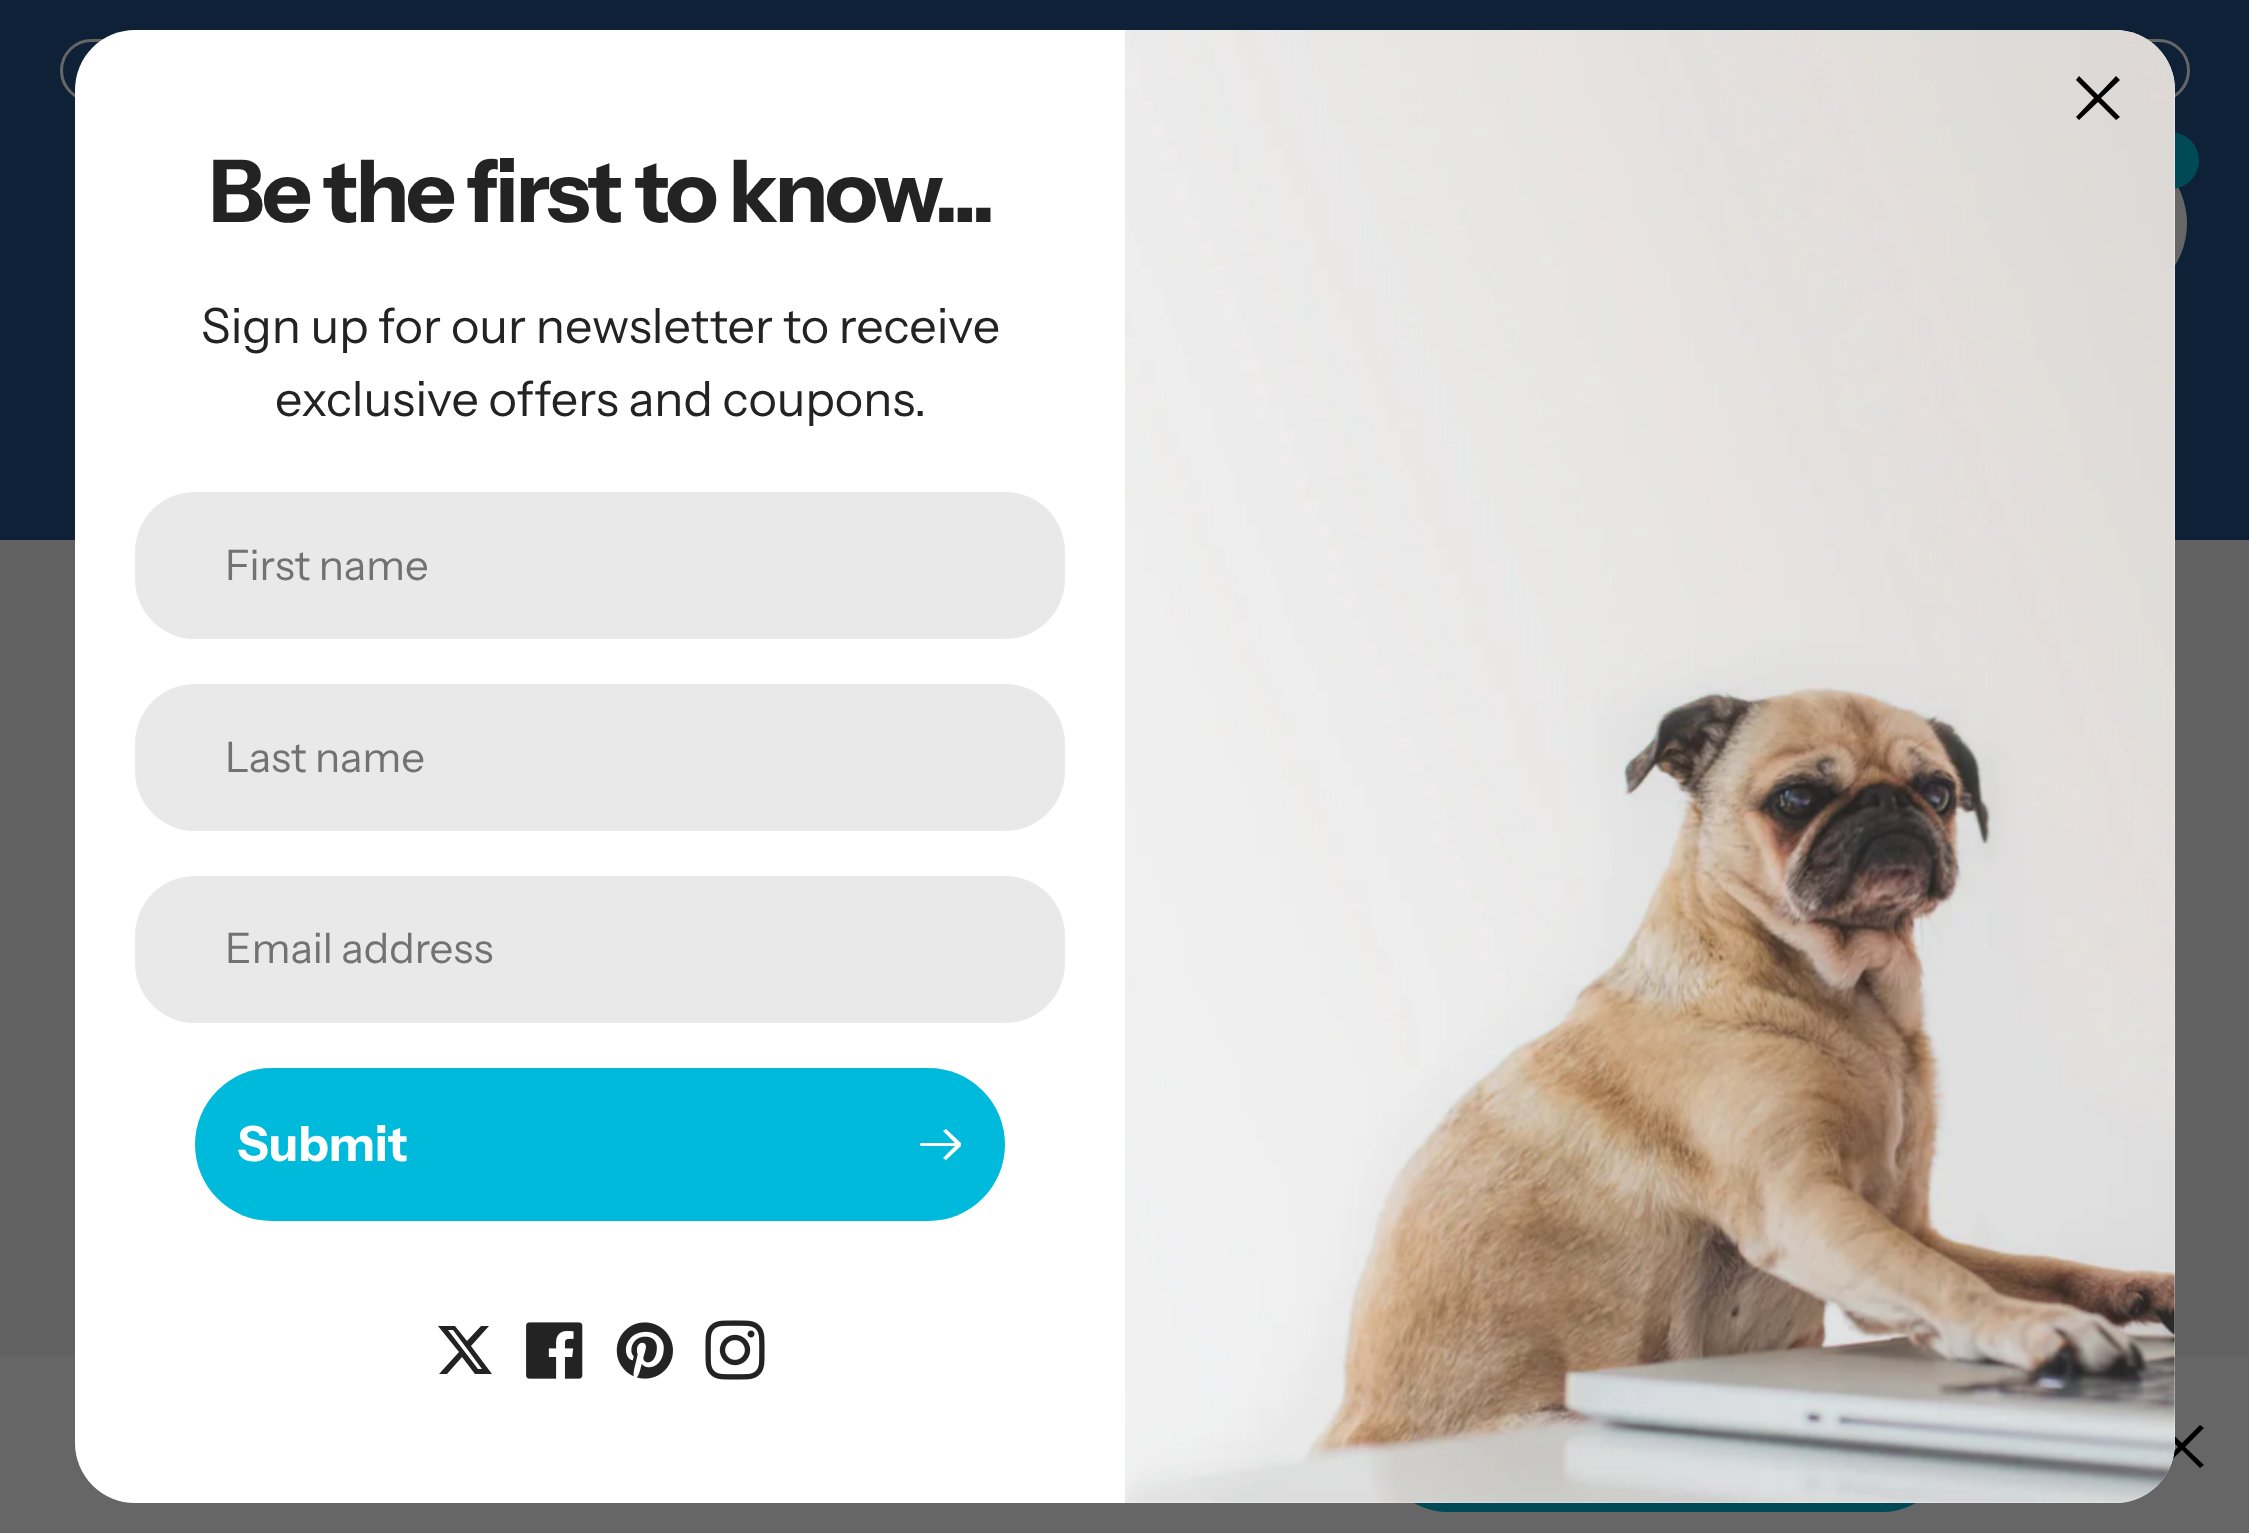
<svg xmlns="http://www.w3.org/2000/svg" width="2249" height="1533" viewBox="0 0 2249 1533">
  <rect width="100%" height="100%" fill="rgb(98,98,98)"/>
  <rect x="0" y="0" width="2249" height="540" fill="rgb(14,33,55)"/>
  <rect x="61.5" y="40.5" width="693" height="60" rx="30" fill="none" stroke="rgb(102,102,102)" stroke-width="3"/>
  <rect x="1762.5" y="40.5" width="426" height="60" rx="30" fill="none" stroke="rgb(102,102,102)" stroke-width="3"/>
  <circle cx="2107.5" cy="223.5" r="79.5" fill="rgb(102,102,102)"/>
  <circle cx="2170.5" cy="160.5" r="28.5" fill="rgb(0,74,88)"/>
  <rect x="0" y="1356" width="2249" height="177" fill="rgb(102,102,102)"/>
  <rect x="1380" y="1377" width="570" height="135" rx="67.5" fill="rgb(0,74,88)"/>
  <path d="M2182 1443L2200 1425L2204 1428L2185 1447L2204 1465L2200 1468L2182 1450L2163 1468L2160 1465L2178 1447L2160 1428L2163 1425Z" fill="rgb(0,0,0)" fill-rule="evenodd"/>
  <rect x="75" y="30" width="2100" height="1473" rx="60" fill="rgb(255,255,255)"/>
  <image x="1125" y="30" width="1050" height="1473" href="pic4.png"/>
  <path d="M2098 95L2116 76L2120 80L2101 98L2120 117L2116 120L2098 102L2079 120L2076 117L2094 98L2076 80L2079 76Z" fill="rgb(0,0,0)" fill-rule="evenodd"/>
  <text x="209" y="222" font-family="Instrument Sans" font-size="86.5" font-weight="bold" letter-spacing="-3" fill="rgb(35,35,35)">Be the first to know...</text>
  <g font-family="Instrument Sans" font-size="48.6" fill="rgb(35,35,35)">
    <text x="201" y="343">Sign up for our newsletter to receive</text>
    <text x="275" y="416">exclusive offers and coupons.</text>
  </g>
  <rect x="135" y="492" width="930" height="147" rx="60" fill="rgb(233,233,233)"/>
  <text x="225" y="580" font-family="Instrument Sans" font-size="42" fill="rgb(114,114,114)">First name</text>
  <rect x="135" y="684" width="930" height="147" rx="60" fill="rgb(233,233,233)"/>
  <text x="225" y="772" font-family="Instrument Sans" font-size="42" fill="rgb(114,114,114)">Last name</text>
  <rect x="135" y="876" width="930" height="147" rx="60" fill="rgb(233,233,233)"/>
  <text x="225" y="963" font-family="Instrument Sans" font-size="42" fill="rgb(114,114,114)">Email address</text>
  <rect x="195" y="1068" width="810" height="153" rx="76.5" fill="rgb(0,186,219)"/>
  <text x="237" y="1161" font-family="Instrument Sans" font-size="48.6" font-weight="bold" fill="rgb(255,255,255)">Submit</text>
  <path d="M961 1143L946 1129L943 1131L955 1143H921C919 1144 920 1146 922 1146H955L943 1158L946 1160L961 1146C961 1145 961 1144 961 1143Z" fill="rgb(255,255,255)"/>
  <path d="M481 1326H489L471 1346L492 1374H475L462 1357L447 1374H439L459 1352L438 1326H455L467 1341ZM478 1369H482L453 1330H448Z" fill="rgb(35,35,35)"/>
  <image x="526" y="1322" width="57" height="57" href="pic1.png"/>
  <image x="616" y="1322" width="57" height="57" href="pic2.png"/>
  <image x="705" y="1320" width="60" height="60" href="pic3.png"/>
</svg>
